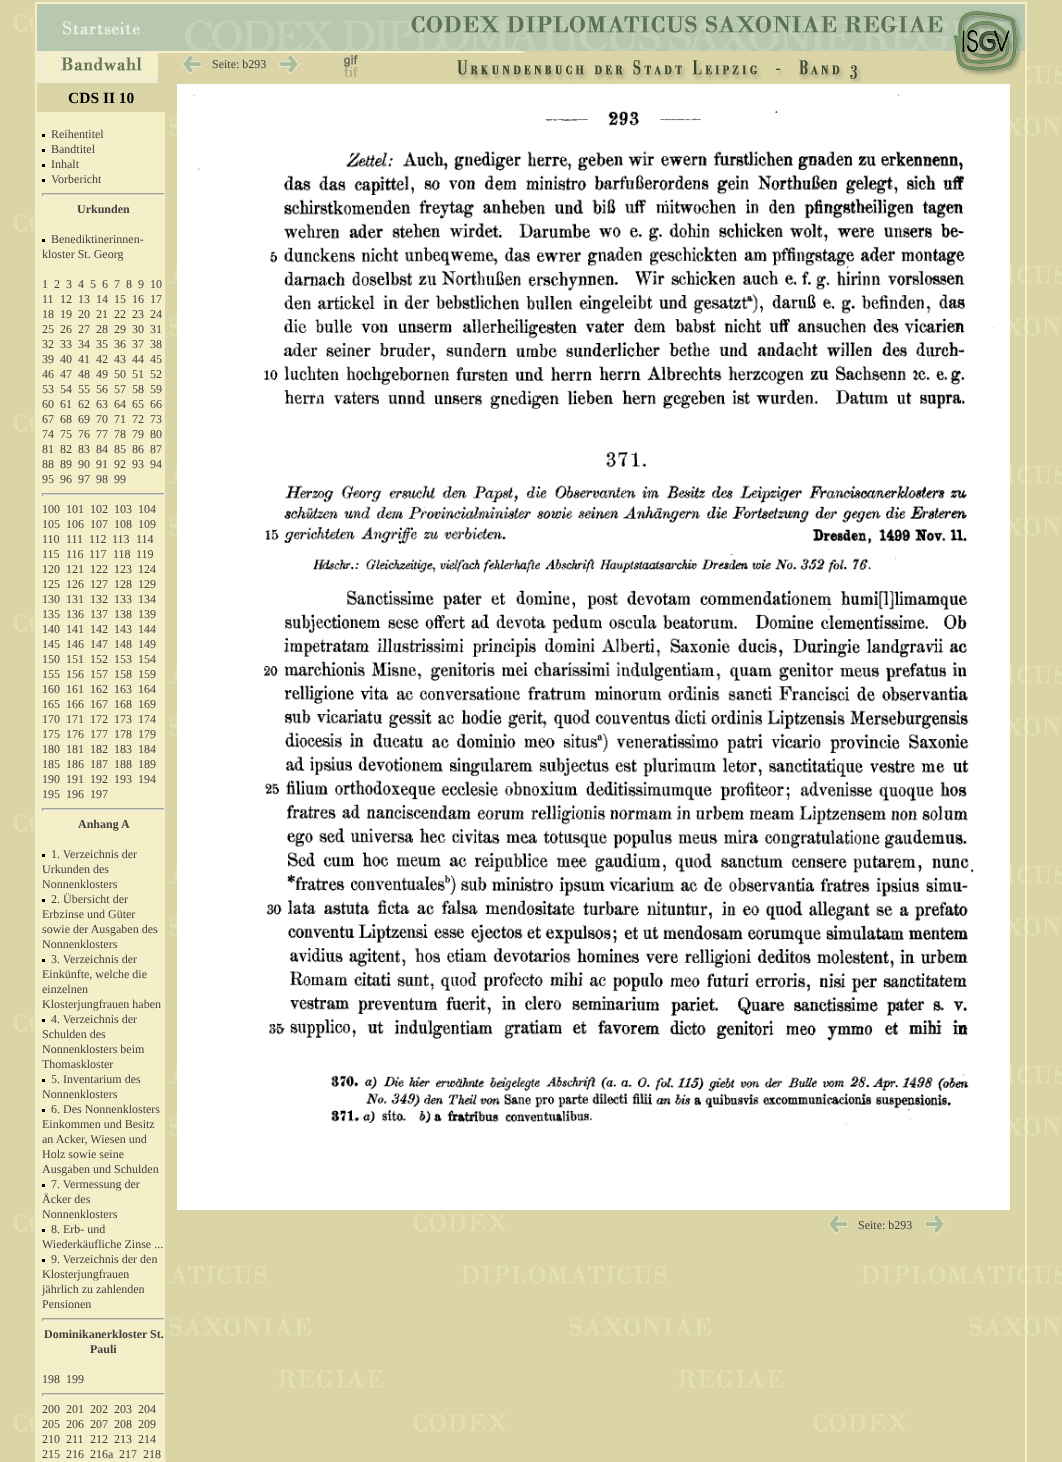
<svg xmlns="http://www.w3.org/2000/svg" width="1062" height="1462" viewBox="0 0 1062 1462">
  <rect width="100%" height="100%" fill="rgb(218,212,166)"/>
  <image x="13" y="14" width="1049" height="1418" href="pic1.png"/>
  <rect x="36" y="3" width="990" height="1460" fill="none" stroke="rgb(244,239,201)" stroke-width="2"/>
  <image x="37" y="4" width="988" height="80" href="pic2.png"/>
  <rect x="143" y="52" width="381" height="23" fill="rgb(244,239,201)"/>
  <rect x="59" y="51" width="465" height="1" fill="rgb(244,239,201)"/>
  <rect x="59" y="75" width="99" height="1" fill="rgb(244,239,201)"/>
  <rect x="47" y="51" width="12" height="25" fill="rgb(244,239,201)"/>
  <image x="59" y="52" width="84" height="23" href="pic3.png"/>
  <rect x="158" y="53" width="180" height="30" fill="rgb(218,212,166)"/>
  <image x="182" y="54" width="20" height="20" href="pic4.png"/>
  <text x="212" y="68" font-family="Liberation Serif" font-size="12" fill="rgb(64,64,64)">Seite: b293</text>
  <image x="279" y="54" width="20" height="20" href="pic5.png"/>
  <rect x="338" y="53" width="186" height="22" fill="rgb(218,212,166)"/>
  <image x="344" y="55" width="14" height="22" href="pic6.png"/>
  <image x="457" y="56" width="405" height="26" href="pic7.png"/>
  <rect x="37" y="112" width="128" height="1350" fill="rgb(244,239,201)"/>
  <text x="68" y="103" font-family="Liberation Serif" font-size="15.5" font-weight="bold" fill="rgb(0,0,0)">CDS II 10</text>
  <rect x="42" y="134" width="3" height="3" fill="rgb(0,0,0)"/>
  <text x="51" y="138" font-family="Liberation Serif" font-size="12" fill="rgb(64,64,64)">Reihentitel</text>
  <rect x="42" y="149" width="3" height="3" fill="rgb(0,0,0)"/>
  <text x="51" y="153" font-family="Liberation Serif" font-size="12" fill="rgb(64,64,64)">Bandtitel</text>
  <rect x="42" y="164" width="3" height="3" fill="rgb(0,0,0)"/>
  <text x="51" y="168" font-family="Liberation Serif" font-size="12" fill="rgb(64,64,64)">Inhalt</text>
  <rect x="42" y="179" width="3" height="3" fill="rgb(0,0,0)"/>
  <text x="51" y="183" font-family="Liberation Serif" font-size="12" fill="rgb(64,64,64)">Vorbericht</text>
  <rect x="42" y="194" width="123" height="1" fill="rgb(218,212,166)"/>
  <rect x="42" y="193" width="123" height="1" fill="rgb(159,159,159)"/>
  <rect x="164" y="193" width="1" height="3" fill="rgb(238,238,238)"/>
  <rect x="42" y="195" width="123" height="1" fill="rgb(238,238,238)"/>
  <rect x="42" y="193" width="1" height="3" fill="rgb(159,159,159)"/>
  <text x="77" y="213" font-family="Liberation Serif" font-size="12" font-weight="bold" fill="rgb(64,64,64)">Urkunden</text>
  <rect x="42" y="239" width="3" height="3" fill="rgb(0,0,0)"/>
  <g font-family="Liberation Serif" font-size="12" fill="rgb(64,64,64)">
    <text x="51" y="243">Benediktinerinnen-</text>
    <text x="42" y="258">kloster St. Georg</text>
    <text x="42" y="288">1</text>
    <text x="54" y="288">2</text>
    <text x="66" y="288">3</text>
    <text x="78" y="288">4</text>
    <text x="90" y="288">5</text>
    <text x="102" y="288">6</text>
    <text x="114" y="288">7</text>
    <text x="126" y="288">8</text>
    <text x="138" y="288">9</text>
    <text x="150" y="288">10</text>
    <text x="42" y="303">11</text>
    <text x="60" y="303">12</text>
    <text x="78" y="303">13</text>
    <text x="96" y="303">14</text>
    <text x="114" y="303">15</text>
    <text x="132" y="303">16</text>
    <text x="150" y="303">17</text>
    <text x="42" y="318">18</text>
    <text x="60" y="318">19</text>
    <text x="78" y="318">20</text>
    <text x="96" y="318">21</text>
    <text x="114" y="318">22</text>
    <text x="132" y="318">23</text>
    <text x="150" y="318">24</text>
    <text x="42" y="333">25</text>
    <text x="60" y="333">26</text>
    <text x="78" y="333">27</text>
    <text x="96" y="333">28</text>
    <text x="114" y="333">29</text>
    <text x="132" y="333">30</text>
    <text x="150" y="333">31</text>
    <text x="42" y="348">32</text>
    <text x="60" y="348">33</text>
    <text x="78" y="348">34</text>
    <text x="96" y="348">35</text>
    <text x="114" y="348">36</text>
    <text x="132" y="348">37</text>
    <text x="150" y="348">38</text>
    <text x="42" y="363">39</text>
    <text x="60" y="363">40</text>
    <text x="78" y="363">41</text>
    <text x="96" y="363">42</text>
    <text x="114" y="363">43</text>
    <text x="132" y="363">44</text>
    <text x="150" y="363">45</text>
    <text x="42" y="378">46</text>
    <text x="60" y="378">47</text>
    <text x="78" y="378">48</text>
    <text x="96" y="378">49</text>
    <text x="114" y="378">50</text>
    <text x="132" y="378">51</text>
    <text x="150" y="378">52</text>
    <text x="42" y="393">53</text>
    <text x="60" y="393">54</text>
    <text x="78" y="393">55</text>
    <text x="96" y="393">56</text>
    <text x="114" y="393">57</text>
    <text x="132" y="393">58</text>
    <text x="150" y="393">59</text>
    <text x="42" y="408">60</text>
    <text x="60" y="408">61</text>
    <text x="78" y="408">62</text>
    <text x="96" y="408">63</text>
    <text x="114" y="408">64</text>
    <text x="132" y="408">65</text>
    <text x="150" y="408">66</text>
    <text x="42" y="423">67</text>
    <text x="60" y="423">68</text>
    <text x="78" y="423">69</text>
    <text x="96" y="423">70</text>
    <text x="114" y="423">71</text>
    <text x="132" y="423">72</text>
    <text x="150" y="423">73</text>
    <text x="42" y="438">74</text>
    <text x="60" y="438">75</text>
    <text x="78" y="438">76</text>
    <text x="96" y="438">77</text>
    <text x="114" y="438">78</text>
    <text x="132" y="438">79</text>
    <text x="150" y="438">80</text>
    <text x="42" y="453">81</text>
    <text x="60" y="453">82</text>
    <text x="78" y="453">83</text>
    <text x="96" y="453">84</text>
    <text x="114" y="453">85</text>
    <text x="132" y="453">86</text>
    <text x="150" y="453">87</text>
    <text x="42" y="468">88</text>
    <text x="60" y="468">89</text>
    <text x="78" y="468">90</text>
    <text x="96" y="468">91</text>
    <text x="114" y="468">92</text>
    <text x="132" y="468">93</text>
    <text x="150" y="468">94</text>
    <text x="42" y="483">95</text>
    <text x="60" y="483">96</text>
    <text x="78" y="483">97</text>
    <text x="96" y="483">98</text>
    <text x="114" y="483">99</text>
  </g>
  <rect x="42" y="494" width="123" height="1" fill="rgb(218,212,166)"/>
  <rect x="42" y="493" width="123" height="1" fill="rgb(159,159,159)"/>
  <rect x="164" y="493" width="1" height="3" fill="rgb(238,238,238)"/>
  <rect x="42" y="495" width="123" height="1" fill="rgb(238,238,238)"/>
  <rect x="42" y="493" width="1" height="3" fill="rgb(159,159,159)"/>
  <g font-family="Liberation Serif" font-size="12" fill="rgb(64,64,64)">
    <text x="42" y="513">100</text>
    <text x="66" y="513">101</text>
    <text x="90" y="513">102</text>
    <text x="114" y="513">103</text>
    <text x="138" y="513">104</text>
    <text x="42" y="528">105</text>
    <text x="66" y="528">106</text>
    <text x="90" y="528">107</text>
    <text x="114" y="528">108</text>
    <text x="138" y="528">109</text>
    <text x="42" y="543">110</text>
    <text x="66" y="543">111</text>
    <text x="89" y="543">112</text>
    <text x="112" y="543">113</text>
    <text x="136" y="543">114</text>
    <text x="42" y="558">115</text>
    <text x="66" y="558">116</text>
    <text x="89" y="558">117</text>
    <text x="113" y="558">118</text>
    <text x="136" y="558">119</text>
    <text x="42" y="573">120</text>
    <text x="66" y="573">121</text>
    <text x="90" y="573">122</text>
    <text x="114" y="573">123</text>
    <text x="138" y="573">124</text>
    <text x="42" y="588">125</text>
    <text x="66" y="588">126</text>
    <text x="90" y="588">127</text>
    <text x="114" y="588">128</text>
    <text x="138" y="588">129</text>
    <text x="42" y="603">130</text>
    <text x="66" y="603">131</text>
    <text x="90" y="603">132</text>
    <text x="114" y="603">133</text>
    <text x="138" y="603">134</text>
    <text x="42" y="618">135</text>
    <text x="66" y="618">136</text>
    <text x="90" y="618">137</text>
    <text x="114" y="618">138</text>
    <text x="138" y="618">139</text>
    <text x="42" y="633">140</text>
    <text x="66" y="633">141</text>
    <text x="90" y="633">142</text>
    <text x="114" y="633">143</text>
    <text x="138" y="633">144</text>
    <text x="42" y="648">145</text>
    <text x="66" y="648">146</text>
    <text x="90" y="648">147</text>
    <text x="114" y="648">148</text>
    <text x="138" y="648">149</text>
    <text x="42" y="663">150</text>
    <text x="66" y="663">151</text>
    <text x="90" y="663">152</text>
    <text x="114" y="663">153</text>
    <text x="138" y="663">154</text>
    <text x="42" y="678">155</text>
    <text x="66" y="678">156</text>
    <text x="90" y="678">157</text>
    <text x="114" y="678">158</text>
    <text x="138" y="678">159</text>
    <text x="42" y="693">160</text>
    <text x="66" y="693">161</text>
    <text x="90" y="693">162</text>
    <text x="114" y="693">163</text>
    <text x="138" y="693">164</text>
    <text x="42" y="708">165</text>
    <text x="66" y="708">166</text>
    <text x="90" y="708">167</text>
    <text x="114" y="708">168</text>
    <text x="138" y="708">169</text>
    <text x="42" y="723">170</text>
    <text x="66" y="723">171</text>
    <text x="90" y="723">172</text>
    <text x="114" y="723">173</text>
    <text x="138" y="723">174</text>
    <text x="42" y="738">175</text>
    <text x="66" y="738">176</text>
    <text x="90" y="738">177</text>
    <text x="114" y="738">178</text>
    <text x="138" y="738">179</text>
    <text x="42" y="753">180</text>
    <text x="66" y="753">181</text>
    <text x="90" y="753">182</text>
    <text x="114" y="753">183</text>
    <text x="138" y="753">184</text>
    <text x="42" y="768">185</text>
    <text x="66" y="768">186</text>
    <text x="90" y="768">187</text>
    <text x="114" y="768">188</text>
    <text x="138" y="768">189</text>
    <text x="42" y="783">190</text>
    <text x="66" y="783">191</text>
    <text x="90" y="783">192</text>
    <text x="114" y="783">193</text>
    <text x="138" y="783">194</text>
    <text x="42" y="798">195</text>
    <text x="66" y="798">196</text>
    <text x="90" y="798">197</text>
  </g>
  <rect x="42" y="809" width="123" height="1" fill="rgb(218,212,166)"/>
  <rect x="42" y="808" width="123" height="1" fill="rgb(159,159,159)"/>
  <rect x="164" y="808" width="1" height="3" fill="rgb(238,238,238)"/>
  <rect x="42" y="810" width="123" height="1" fill="rgb(238,238,238)"/>
  <rect x="42" y="808" width="1" height="3" fill="rgb(159,159,159)"/>
  <text x="78" y="828" font-family="Liberation Serif" font-size="12" font-weight="bold" fill="rgb(64,64,64)">Anhang A</text>
  <rect x="42" y="854" width="3" height="3" fill="rgb(0,0,0)"/>
  <g font-family="Liberation Serif" font-size="12" fill="rgb(64,64,64)">
    <text x="51" y="858">1. Verzeichnis der</text>
    <text>
      <tspan x="42" y="873">Urkunden des</tspan>
      <tspan x="42" y="888">Nonnenklosters</tspan>
    </text>
  </g>
  <rect x="42" y="899" width="3" height="3" fill="rgb(0,0,0)"/>
  <g font-family="Liberation Serif" font-size="12" fill="rgb(64,64,64)">
    <text x="51" y="903">2. Übersicht der</text>
    <text>
      <tspan x="42" y="918">Erbzinse und Güter</tspan>
      <tspan x="42" y="933">sowie der Ausgaben des</tspan>
      <tspan x="42" y="948">Nonnenklosters</tspan>
    </text>
  </g>
  <rect x="42" y="959" width="3" height="3" fill="rgb(0,0,0)"/>
  <g font-family="Liberation Serif" font-size="12" fill="rgb(64,64,64)">
    <text x="51" y="963">3. Verzeichnis der</text>
    <text>
      <tspan x="42" y="978">Einkünfte, welche die</tspan>
      <tspan x="42" y="993">einzelnen</tspan>
      <tspan x="42" y="1008">Klosterjungfrauen haben</tspan>
    </text>
  </g>
  <rect x="42" y="1019" width="3" height="3" fill="rgb(0,0,0)"/>
  <g font-family="Liberation Serif" font-size="12" fill="rgb(64,64,64)">
    <text x="51" y="1023">4. Verzeichnis der</text>
    <text>
      <tspan x="42" y="1038">Schulden des</tspan>
      <tspan x="42" y="1053">Nonnenklosters beim</tspan>
      <tspan x="42" y="1068">Thomaskloster</tspan>
    </text>
  </g>
  <rect x="42" y="1079" width="3" height="3" fill="rgb(0,0,0)"/>
  <g font-family="Liberation Serif" font-size="12" fill="rgb(64,64,64)">
    <text x="51" y="1083">5. Inventarium des</text>
    <text x="42" y="1098">Nonnenklosters</text>
  </g>
  <rect x="42" y="1109" width="3" height="3" fill="rgb(0,0,0)"/>
  <g font-family="Liberation Serif" font-size="12" fill="rgb(64,64,64)">
    <text x="51" y="1113">6. Des Nonnenklosters</text>
    <text>
      <tspan x="42" y="1128">Einkommen und Besitz</tspan>
      <tspan x="42" y="1143">an Acker, Wiesen und</tspan>
      <tspan x="42" y="1158">Holz sowie seine</tspan>
      <tspan x="42" y="1173">Ausgaben und Schulden</tspan>
    </text>
  </g>
  <rect x="42" y="1184" width="3" height="3" fill="rgb(0,0,0)"/>
  <g font-family="Liberation Serif" font-size="12" fill="rgb(64,64,64)">
    <text x="51" y="1188">7. Vermessung der</text>
    <text>
      <tspan x="42" y="1203">Äcker des</tspan>
      <tspan x="42" y="1218">Nonnenklosters</tspan>
    </text>
  </g>
  <rect x="42" y="1229" width="3" height="3" fill="rgb(0,0,0)"/>
  <g font-family="Liberation Serif" font-size="12" fill="rgb(64,64,64)">
    <text x="51" y="1233">8. Erb- und</text>
    <text x="42" y="1248">Wiederkäufliche Zinse ...</text>
  </g>
  <rect x="42" y="1259" width="3" height="3" fill="rgb(0,0,0)"/>
  <g font-family="Liberation Serif" font-size="12" fill="rgb(64,64,64)">
    <text x="51" y="1263">9. Verzeichnis der den</text>
    <text>
      <tspan x="42" y="1278">Klosterjungfrauen</tspan>
      <tspan x="42" y="1293">jährlich zu zahlenden</tspan>
      <tspan x="42" y="1308">Pensionen</tspan>
    </text>
  </g>
  <rect x="42" y="1319" width="123" height="1" fill="rgb(218,212,166)"/>
  <rect x="42" y="1318" width="123" height="1" fill="rgb(159,159,159)"/>
  <rect x="164" y="1318" width="1" height="3" fill="rgb(238,238,238)"/>
  <rect x="42" y="1320" width="123" height="1" fill="rgb(238,238,238)"/>
  <rect x="42" y="1318" width="1" height="3" fill="rgb(159,159,159)"/>
  <g font-family="Liberation Serif" font-size="12" font-weight="bold" fill="rgb(64,64,64)">
    <text x="44" y="1338">Dominikanerkloster St.</text>
    <text x="90" y="1353">Pauli</text>
  </g>
  <g font-family="Liberation Serif" font-size="12" fill="rgb(64,64,64)">
    <text x="42" y="1383">198</text>
    <text x="66" y="1383">199</text>
  </g>
  <rect x="42" y="1394" width="123" height="1" fill="rgb(218,212,166)"/>
  <rect x="42" y="1393" width="123" height="1" fill="rgb(159,159,159)"/>
  <rect x="164" y="1393" width="1" height="3" fill="rgb(238,238,238)"/>
  <rect x="42" y="1395" width="123" height="1" fill="rgb(238,238,238)"/>
  <rect x="42" y="1393" width="1" height="3" fill="rgb(159,159,159)"/>
  <g font-family="Liberation Serif" font-size="12" fill="rgb(64,64,64)">
    <text x="42" y="1413">200</text>
    <text x="66" y="1413">201</text>
    <text x="90" y="1413">202</text>
    <text x="114" y="1413">203</text>
    <text x="138" y="1413">204</text>
    <text x="42" y="1428">205</text>
    <text x="66" y="1428">206</text>
    <text x="90" y="1428">207</text>
    <text x="114" y="1428">208</text>
    <text x="138" y="1428">209</text>
    <text x="42" y="1443">210</text>
    <text x="66" y="1443">211</text>
    <text x="90" y="1443">212</text>
    <text x="114" y="1443">213</text>
    <text x="138" y="1443">214</text>
    <text x="42" y="1458">215</text>
    <text x="66" y="1458">216</text>
    <text x="90" y="1458">216a</text>
    <text x="119" y="1458">217</text>
    <text x="143" y="1458">218</text>
  </g>
  <image x="177" y="84" width="833" height="1126" href="pic8.png"/>
  <rect x="813" y="1214" width="95" height="18" fill="rgb(218,212,166)"/>
  <image x="828" y="1214" width="20" height="20" href="pic4.png"/>
  <text x="858" y="1229" font-family="Liberation Serif" font-size="12" fill="rgb(64,64,64)">Seite: b293</text>
  <image x="925" y="1214" width="20" height="20" href="pic5.png"/>
</svg>
